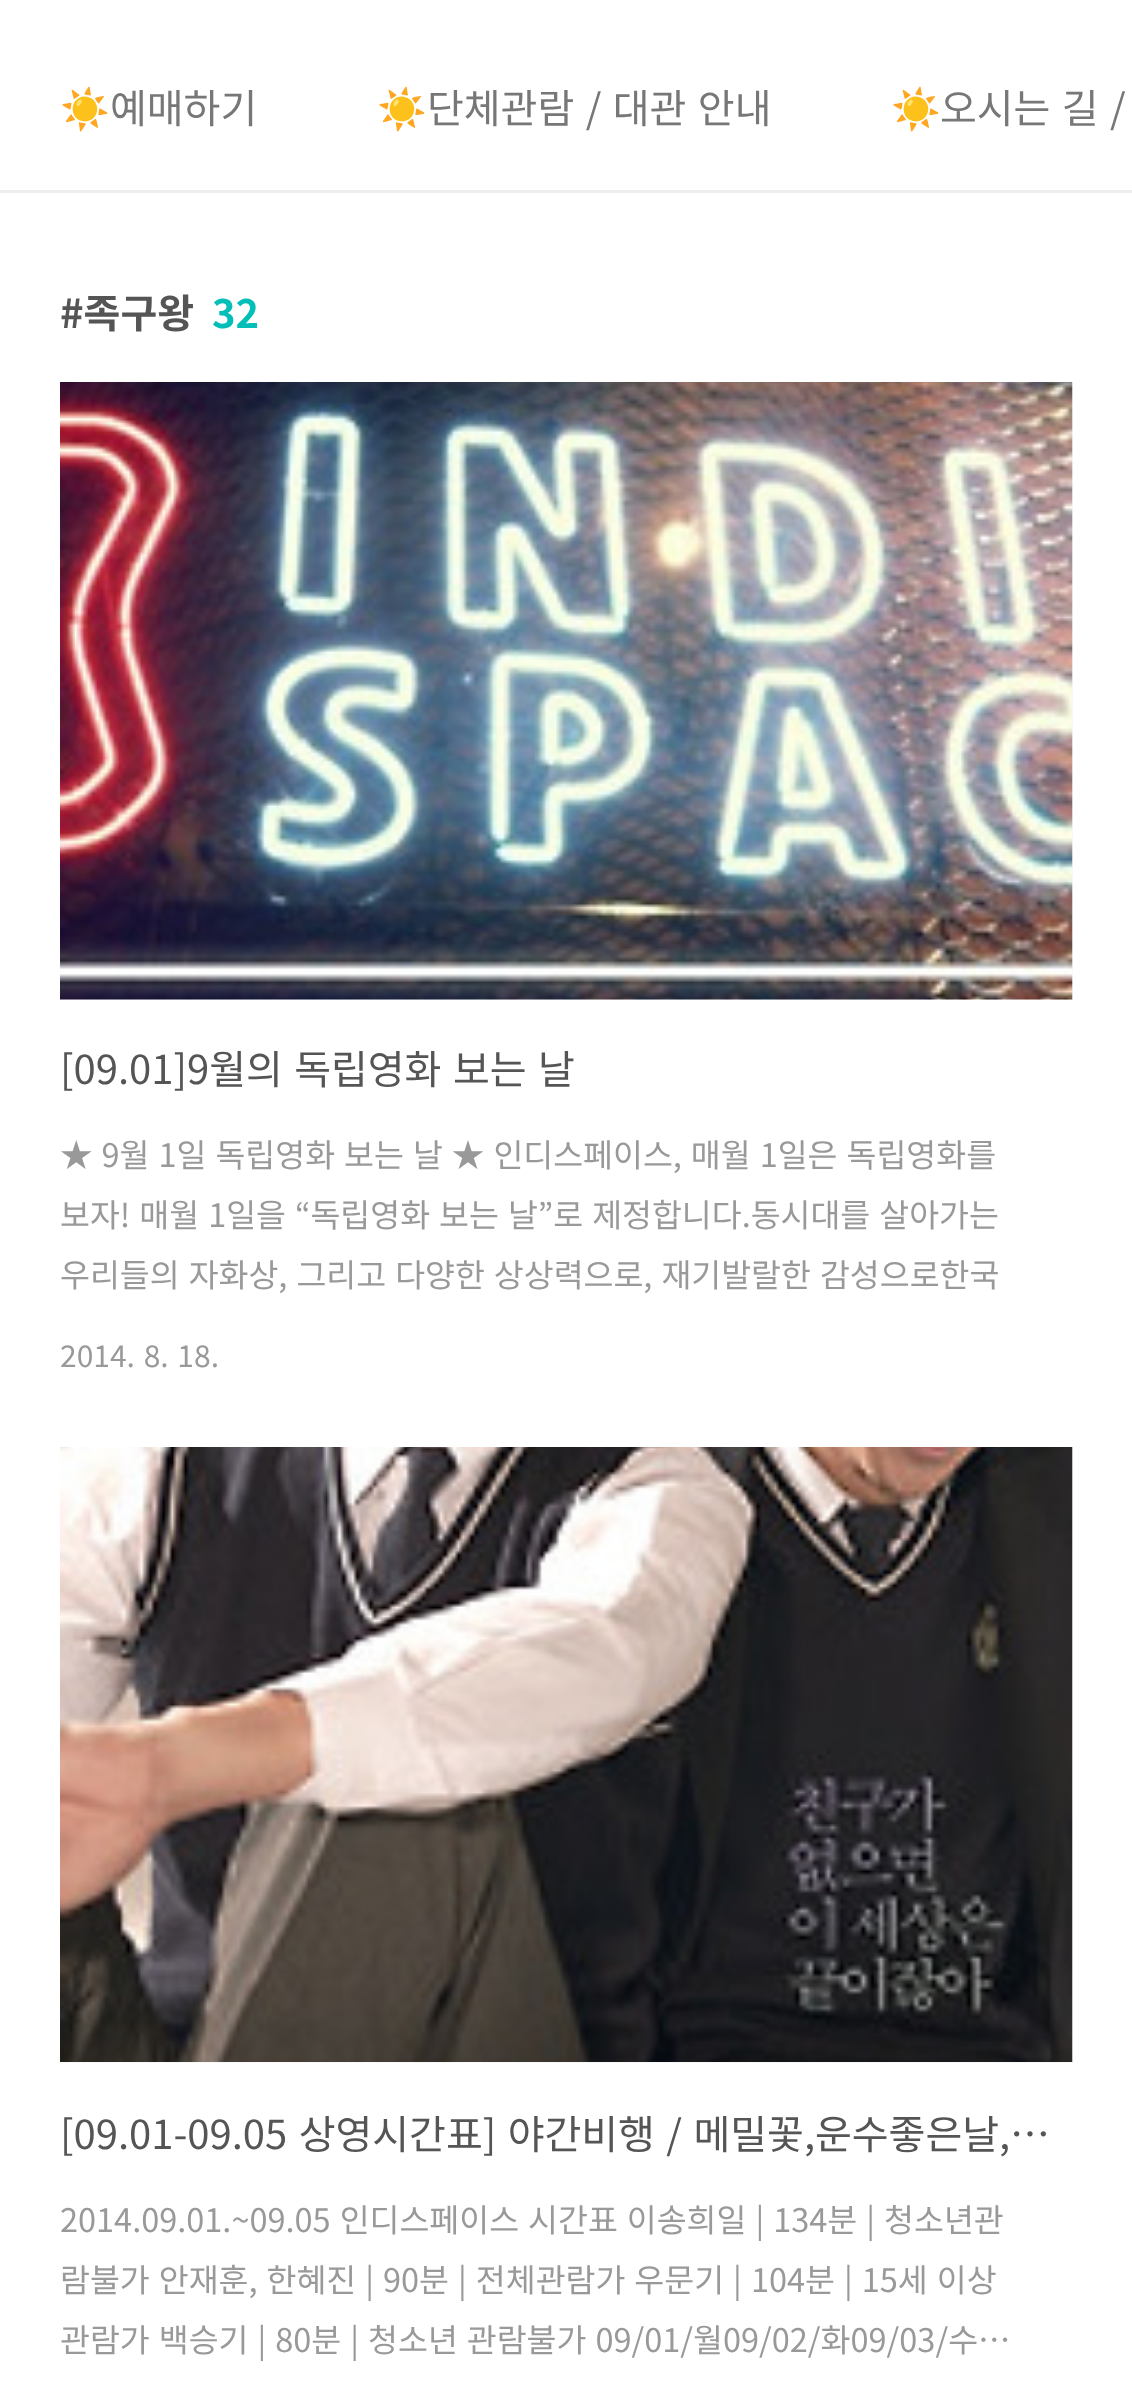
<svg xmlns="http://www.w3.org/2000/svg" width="1132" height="2399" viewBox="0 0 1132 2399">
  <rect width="100%" height="100%" fill="rgb(255,255,255)"/>
  <rect x="0" y="190" width="1132" height="3" fill="rgb(238,238,238)"/>
  <text x="60" y="123" font-family="Noto Color Emoji" font-size="40" fill="rgb(119,119,119)">☀️</text>
  <text x="110" y="123" font-family="Noto Sans KR" font-size="40" fill="rgb(119,119,119)">예매하기</text>
  <text x="377" y="123" font-family="Noto Color Emoji" font-size="40" fill="rgb(119,119,119)">☀️</text>
  <text x="427" y="123" word-spacing="2.5" font-family="Noto Sans KR" font-size="40" fill="rgb(119,119,119)">단체관람 / 대관 안내</text>
  <text x="891" y="123" font-family="Noto Color Emoji" font-size="40" fill="rgb(119,119,119)">☀️</text>
  <text x="940" y="123" word-spacing="2.5" font-family="Noto Sans KR" font-size="40" fill="rgb(119,119,119)">오시는 길 /</text>
  <text x="60" y="328" font-family="Noto Sans KR" font-size="40" font-weight="bold" fill="rgb(85,85,85)">#족구왕</text>
  <text x="212" y="328" font-family="Noto Sans KR" font-size="40" font-weight="bold" fill="rgb(4,190,184)">32</text>
  <rect x="60" y="383" width="1013" height="617" fill="rgb(248,248,248)"/>
  <image x="60" y="382" width="1013" height="618" href="pic1.png"/>
  <text x="60" y="1084" word-spacing="2.5" font-family="Noto Sans KR" font-size="40" fill="rgb(85,85,85)">[09.01]9월의 독립영화 보는 날</text>
  <g font-family="Noto Sans KR" font-size="32.5" fill="rgb(153,153,153)">
    <text>
      <tspan x="60" y="1167" word-spacing="1.75">★ 9월 1일 독립영화 보는 날 ★ 인디스페이스, 매월 1일은 독립영화를</tspan>
      <tspan x="60" y="1227" word-spacing="1.75">보자! 매월 1일을 “독립영화 보는 날”로 제정합니다.동시대를 살아가는</tspan>
      <tspan x="60" y="1287" word-spacing="1.75">우리들의 자화상, 그리고 다양한 상상력으로, 재기발랄한 감성으로한국</tspan>
    </text>
  </g>
  <text x="60" y="1367" word-spacing="2" font-family="Noto Sans KR" font-size="30" fill="rgb(153,153,153)">2014. 8. 18.</text>
  <rect x="60" y="1448" width="1013" height="615" fill="rgb(248,248,248)"/>
  <image x="60" y="1447" width="1013" height="615" href="pic2.png"/>
  <text x="60" y="2149" word-spacing="2.5" font-family="Noto Sans KR" font-size="40" fill="rgb(85,85,85)">[09.01-09.05 상영시간표] 야간비행 / 메밀꽃,운수좋은날,…</text>
  <g font-family="Noto Sans KR" font-size="32.5" fill="rgb(153,153,153)">
    <text>
      <tspan x="60" y="2232" word-spacing="1.75">2014.09.01.~09.05 인디스페이스 시간표 이송희일 | 134분 | 청소년관</tspan>
      <tspan x="60" y="2292" word-spacing="1.75">람불가 안재훈, 한혜진 | 90분 | 전체관람가 우문기 | 104분 | 15세 이상</tspan>
      <tspan x="60" y="2352" word-spacing="1.75">관람가 백승기 | 80분 | 청소년 관람불가 09/01/월09/02/화09/03/수…</tspan>
    </text>
  </g>
</svg>
